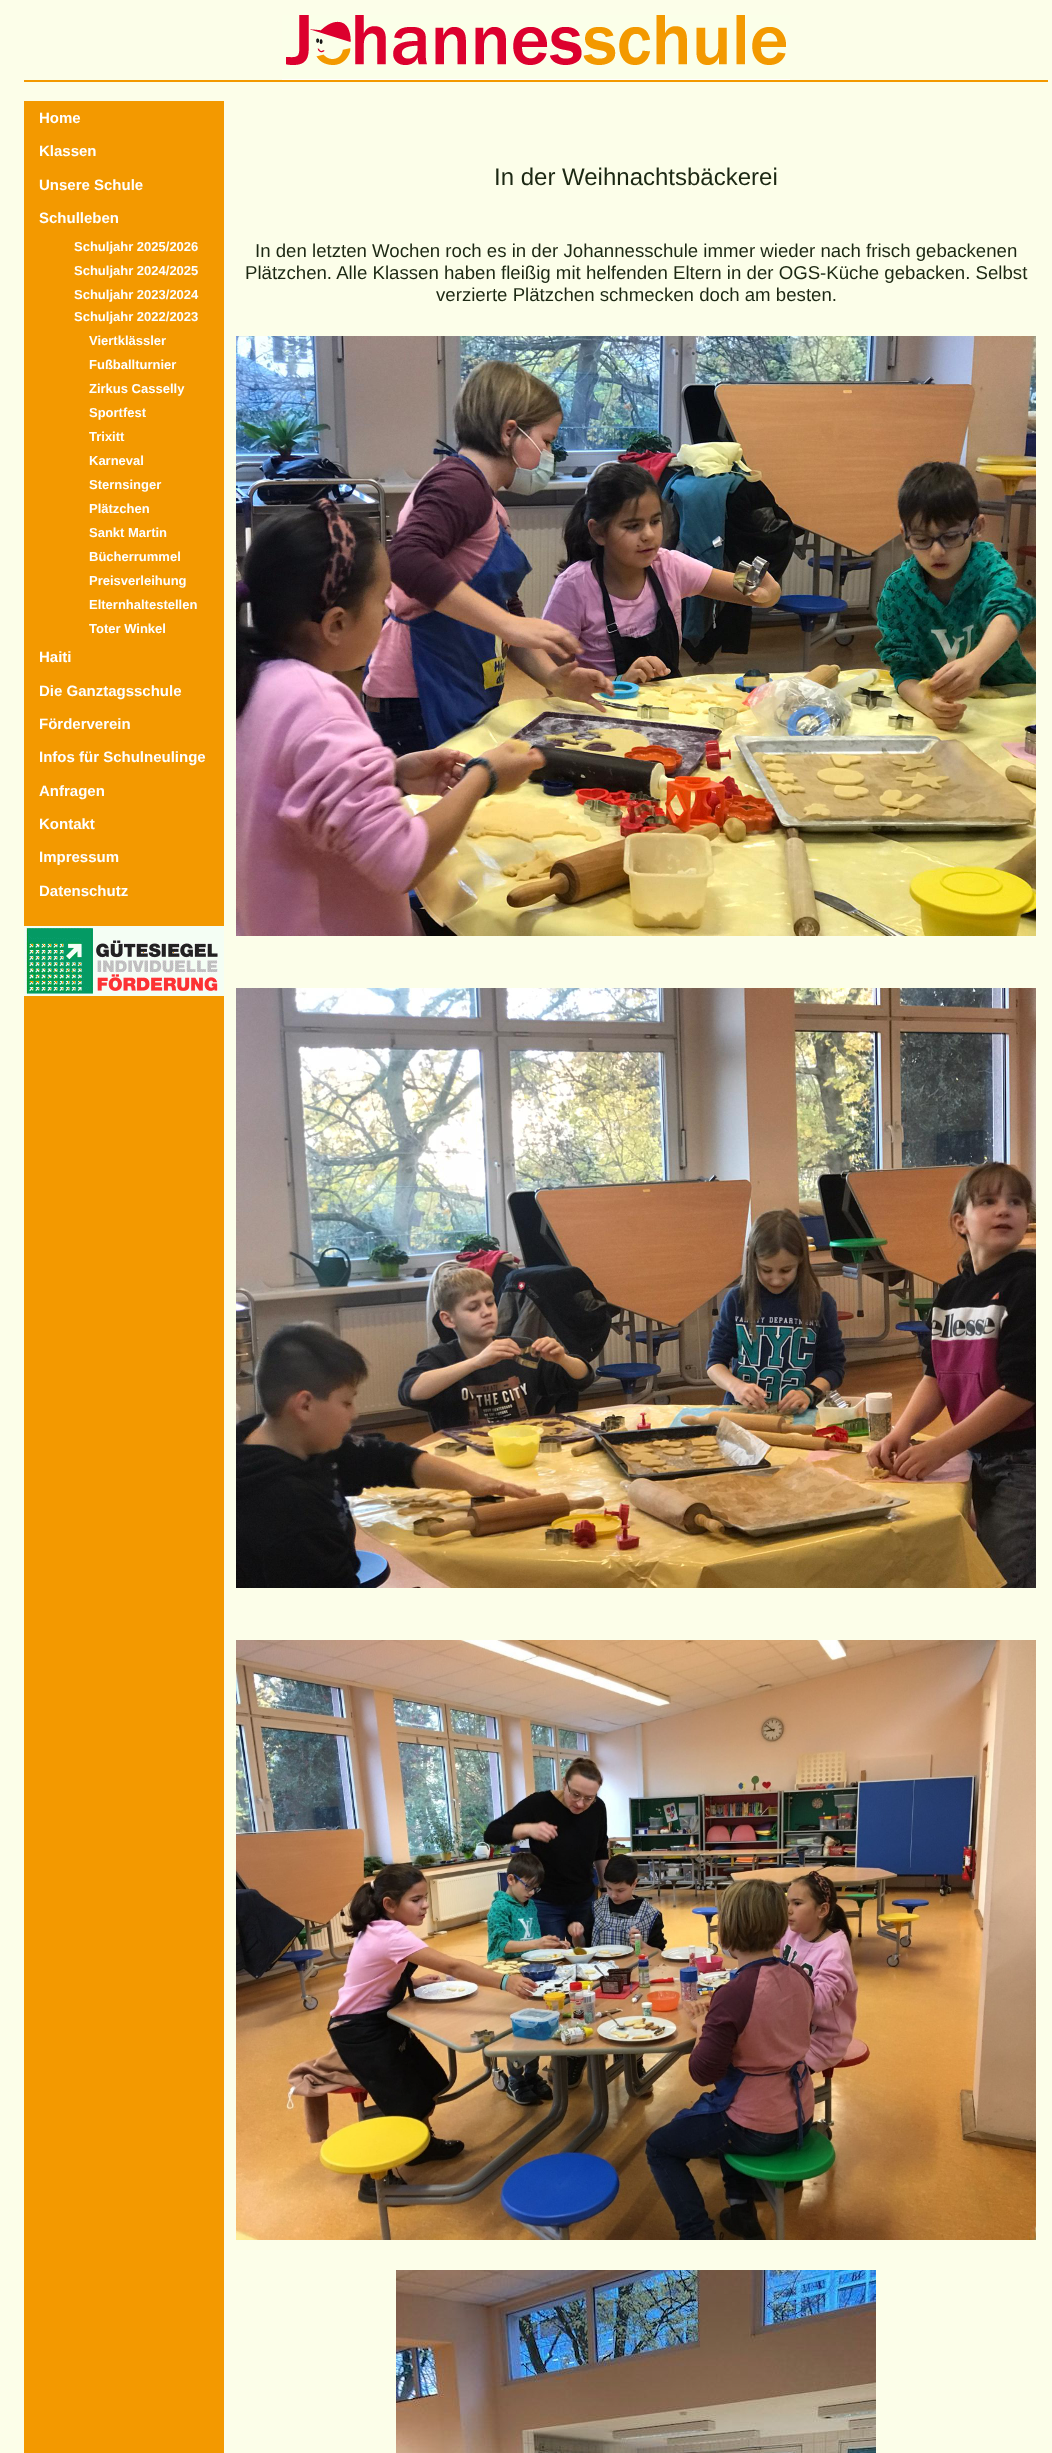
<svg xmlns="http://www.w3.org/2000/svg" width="1052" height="2453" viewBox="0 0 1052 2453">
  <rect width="100%" height="100%" fill="rgb(252,254,233)"/>
  <rect x="24" y="80" width="1024" height="2" fill="rgb(243,153,0)"/>
  <image x="282" y="15" width="508" height="65" href="pic1.png"/>
  <rect x="24" y="101" width="200" height="2352" fill="rgb(243,153,0)"/>
  <g font-family="Liberation Sans" font-size="15" font-weight="bold" fill="rgb(255,255,255)">
    <text x="39" y="123">Home</text>
    <text x="39" y="156">Klassen</text>
    <text x="39" y="190">Unsere Schule</text>
    <text x="39" y="223">Schulleben</text>
  </g>
  <g font-family="Liberation Sans" font-size="13" font-weight="bold" fill="rgb(255,255,255)">
    <text>
      <tspan x="74" y="251">Schuljahr 2025/2026</tspan>
      <tspan x="74" y="275">Schuljahr 2024/2025</tspan>
      <tspan x="74" y="299">Schuljahr 2023/2024</tspan>
      <tspan x="74" y="321">Schuljahr 2022/2023</tspan>
    </text>
    <text>
      <tspan x="89" y="345">Viertklässler</tspan>
      <tspan x="89" y="369">Fußballturnier</tspan>
      <tspan x="89" y="393">Zirkus Casselly</tspan>
      <tspan x="89" y="417">Sportfest</tspan>
      <tspan x="89" y="441">Trixitt</tspan>
      <tspan x="89" y="465">Karneval</tspan>
      <tspan x="89" y="489">Sternsinger</tspan>
      <tspan x="89" y="513">Plätzchen</tspan>
      <tspan x="89" y="537">Sankt Martin</tspan>
      <tspan x="89" y="561">Bücherrummel</tspan>
      <tspan x="89" y="585">Preisverleihung</tspan>
      <tspan x="89" y="609">Elternhaltestellen</tspan>
      <tspan x="89" y="633">Toter Winkel</tspan>
    </text>
  </g>
  <g font-family="Liberation Sans" font-size="15" font-weight="bold" fill="rgb(255,255,255)">
    <text x="39" y="662">Haiti</text>
    <text x="39" y="696">Die Ganztagsschule</text>
    <text x="39" y="729">Förderverein</text>
    <text x="39" y="762">Infos für Schulneulinge</text>
    <text x="39" y="796">Anfragen</text>
    <text x="39" y="829">Kontakt</text>
    <text x="39" y="862">Impressum</text>
    <text x="39" y="896">Datenschutz</text>
  </g>
  <image x="24" y="926" width="200" height="70" href="pic2.png"/>
  <text x="494" y="185" font-family="Liberation Sans" font-size="24" fill="rgb(28,40,19)">In der Weihnachtsbäckerei</text>
  <g font-family="Liberation Sans" font-size="18.65" fill="rgb(28,40,19)">
    <text x="255" y="257">In den letzten Wochen roch es in der Johannesschule immer wieder nach frisch gebackenen</text>
    <text x="245" y="279">Plätzchen. Alle Klassen haben fleißig mit helfenden Eltern in der OGS-Küche gebacken. Selbst</text>
    <text x="436" y="301">verzierte Plätzchen schmecken doch am besten.</text>
  </g>
  <image x="236" y="336" width="800" height="600" href="pic3.png"/>
  <image x="236" y="988" width="800" height="600" href="pic4.png"/>
  <image x="236" y="1640" width="800" height="600" href="pic5.png"/>
  <image x="396" y="2270" width="480" height="183" href="pic6.png"/>
</svg>
